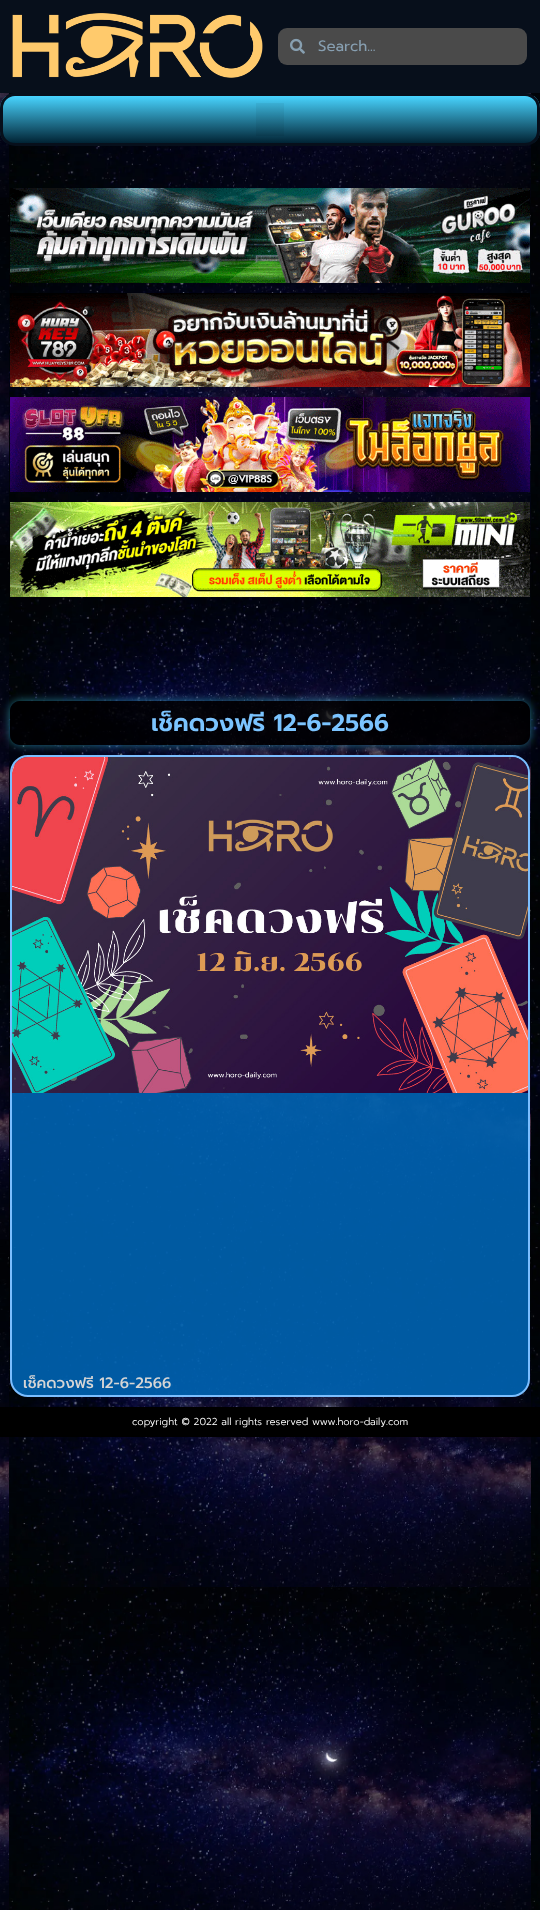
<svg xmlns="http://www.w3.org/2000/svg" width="540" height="1910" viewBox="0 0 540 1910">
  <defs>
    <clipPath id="clip1"><rect x="0" y="93" width="540" height="53" rx="15"/></clipPath>
    <linearGradient id="g1" gradientUnits="userSpaceOnUse" x1="270" y1="96" x2="270" y2="143"><stop offset="0" stop-color="rgb(72,212,255)"/><stop offset="1" stop-color="rgb(1,35,52)"/></linearGradient>
    <clipPath id="clip2"><path d="M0 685H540V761H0ZM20 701H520C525.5 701 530 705.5 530 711V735C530 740.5 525.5 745 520 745H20C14.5 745 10 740.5 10 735V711C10 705.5 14.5 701 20 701Z" clip-rule="evenodd"/></clipPath>
  </defs>
  <rect width="100%" height="100%" fill="rgb(255,255,255)"/>
  <image x="0" y="93" width="540" height="1817" href="pic1.png"/>
  <rect x="0" y="0" width="540" height="93" fill="rgb(7,15,27)"/>
  <image x="12" y="13" width="251" height="65" href="pic2.png"/>
  <rect x="278" y="28" width="249" height="37" rx="9" fill="rgb(74,74,74)"/>
  <image x="290" y="38" width="15" height="16" href="pic3.png"/>
  <text x="318" y="51" font-family="Prompt" font-size="15" fill="rgb(135,159,177)">Search...</text>
  <g clip-path="url(#clip1)">
    <rect x="0" y="96" width="540" height="47" fill="url(#g1)"/>
  </g>
  <rect x="1.5" y="94.5" width="537" height="50" rx="13.5" fill="none" stroke="rgb(7,15,27)" stroke-width="3"/>
  <rect x="256" y="103" width="28" height="33" fill="rgba(0,0,0,0.05)"/>
  <image x="10" y="188" width="520" height="95" href="pic4.png"/>
  <image x="10" y="293" width="520" height="94" href="pic5.png"/>
  <image x="10" y="397" width="520" height="95" href="pic6.png"/>
  <image x="10" y="502" width="520" height="95" href="pic7.png"/>
  <g clip-path="url(#clip2)">
    <rect x="10" y="701" width="520" height="44" rx="10" fill="rgba(67,228,255,0.5)" filter="blur(5px)"/>
  </g>
  <rect x="10" y="701" width="520" height="44" rx="10" fill="rgba(0,0,0,0.83)"/>
  <text x="151" y="731" font-family="Prompt" font-size="24" font-weight="600" fill="rgb(123,196,255)">เช็คดวงฟรี 12-6-2566</text>
  <rect x="11" y="756" width="518" height="640" rx="17" fill="rgba(0,99,177,0.91)" stroke="rgb(123,190,255)" stroke-width="2"/>
  <image x="12" y="757" width="516" height="336" href="pic8.png"/>
  <text x="23" y="1388" font-family="Prompt" font-size="15" font-weight="500" fill="rgb(213,213,213)">เช็คดวงฟรี 12-6-2566</text>
  <rect x="0" y="1407" width="540" height="30" fill="rgb(0,0,0)"/>
  <text x="132" y="1425" font-family="Prompt" font-size="10" font-weight="300" fill="rgb(255,255,255)">copyright © 2022 all rights reserved www.horo-daily.com</text>
</svg>
